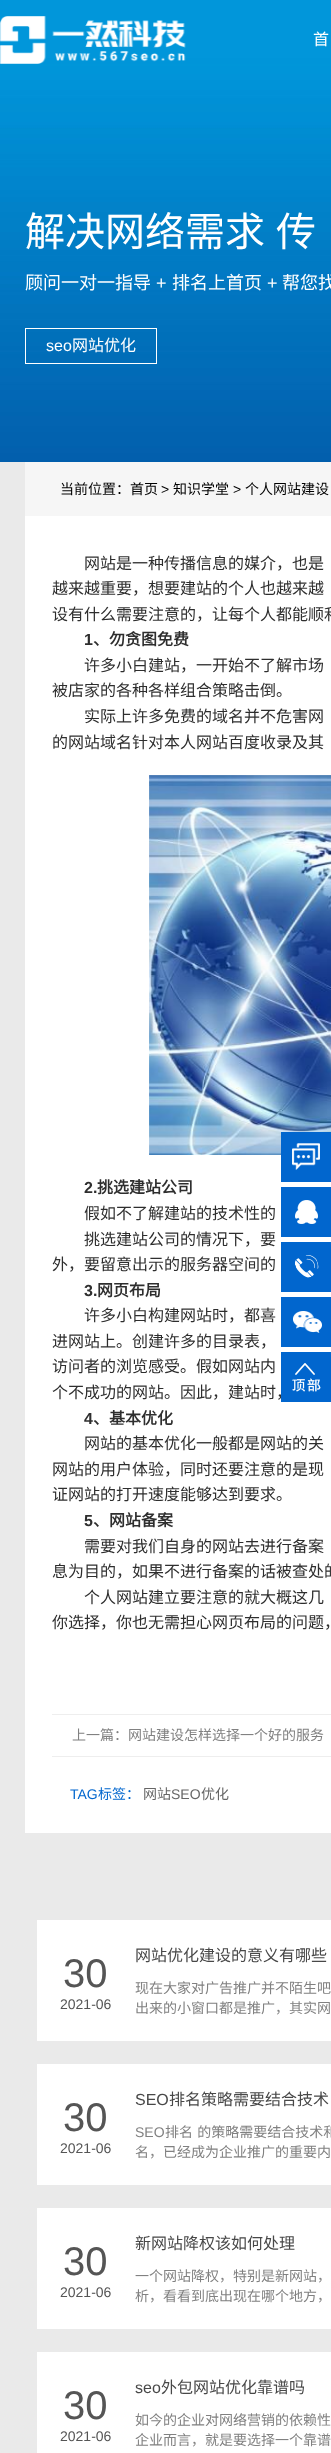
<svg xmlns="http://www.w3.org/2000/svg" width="331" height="2453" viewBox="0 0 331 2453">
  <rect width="100%" height="100%" fill="rgb(255,255,255)"/>
  <image x="0" y="0" width="331" height="462" href="pic2.png"/>
  <image x="0" y="16" width="186" height="48" href="pic1.png"/>
  <text x="313" y="45" font-family="Noto Sans CJK SC" font-size="16" fill="rgb(255,255,255)">首</text>
  <text x="25" y="246" word-spacing="2" font-family="Noto Sans CJK SC" font-size="40" fill="rgb(255,255,255)">解决网络需求 传</text>
  <text x="25" y="289" font-family="Noto Sans CJK SC" font-size="18" fill="rgb(255,255,255)">顾问一对一指导</text>
  <text x="156" y="289" font-family="Liberation Sans" font-size="18" fill="rgb(255,255,255)">+</text>
  <text x="172" y="289" font-family="Noto Sans CJK SC" font-size="18" fill="rgb(255,255,255)">排名上首页</text>
  <text x="267" y="289" font-family="Liberation Sans" font-size="18" fill="rgb(255,255,255)">+</text>
  <text x="282" y="289" font-family="Noto Sans CJK SC" font-size="18" fill="rgb(255,255,255)">帮您找</text>
  <rect x="25.5" y="328.5" width="131" height="35" fill="none" stroke="rgb(255,255,255)"/>
  <text x="46" y="351" font-family="Liberation Sans" font-size="16" fill="rgb(255,255,255)">seo</text>
  <text x="72" y="351" font-family="Noto Sans CJK SC" font-size="16" fill="rgb(255,255,255)">网站优化</text>
  <rect x="0" y="462" width="331" height="1991" fill="rgb(234,234,234)"/>
  <rect x="25" y="516" width="306" height="1317" fill="rgb(255,255,255)"/>
  <rect x="25" y="462" width="306" height="54" fill="rgb(246,246,246)"/>
  <text x="60" y="494" font-family="Noto Sans CJK SC" font-size="14" fill="rgb(0,0,0)">当前位置：首页</text>
  <text x="161" y="494" font-family="Liberation Sans" font-size="14" fill="rgb(0,0,0)">&gt;</text>
  <text x="173" y="494" font-family="Noto Sans CJK SC" font-size="14" fill="rgb(0,0,0)">知识学堂</text>
  <text x="233" y="494" font-family="Liberation Sans" font-size="14" fill="rgb(0,0,0)">&gt;</text>
  <text x="245" y="494" font-family="Noto Sans CJK SC" font-size="14" fill="rgb(0,0,0)">个人网站建设</text>
  <g font-family="Noto Sans CJK SC" font-size="16" fill="rgb(46,46,46)">
    <text x="84" y="569">网站是一种传播信息的媒介，也是</text>
    <text>
      <tspan x="52" y="594">越来越重要，想要建站的个人也越来越</tspan>
      <tspan x="52" y="620">设有什么需要注意的，让每个人都能顺利</tspan>
    </text>
  </g>
  <text x="84" y="645" font-family="Liberation Sans" font-size="16" font-weight="bold" fill="rgb(46,46,46)">1</text>
  <text x="93" y="645" font-family="Noto Sans CJK SC" font-size="16" font-weight="bold" fill="rgb(46,46,46)">、勿贪图免费</text>
  <g font-family="Noto Sans CJK SC" font-size="16" fill="rgb(46,46,46)">
    <text x="84" y="671">许多小白建站，一开始不了解市场</text>
    <text x="52" y="696">被店家的各种各样组合策略击倒。</text>
    <text x="84" y="722">实际上许多免费的域名并不危害网</text>
    <text x="52" y="748">的网站域名针对本人网站百度收录及其</text>
  </g>
  <image x="149" y="775" width="182" height="380" href="pic3.png"/>
  <text x="84" y="1193" font-family="Liberation Sans" font-size="16" font-weight="bold" fill="rgb(46,46,46)">2.</text>
  <text x="97" y="1193" font-family="Noto Sans CJK SC" font-size="16" font-weight="bold" fill="rgb(46,46,46)">挑选建站公司</text>
  <g font-family="Noto Sans CJK SC" font-size="16" fill="rgb(46,46,46)">
    <text>
      <tspan x="84" y="1219">假如不了解建站的技术性的</tspan>
      <tspan x="84" y="1245">挑选建站公司的情况下，要</tspan>
    </text>
    <text x="52" y="1270">外，要留意出示的服务器空间的</text>
  </g>
  <text x="84" y="1296" font-family="Liberation Sans" font-size="16" font-weight="bold" fill="rgb(46,46,46)">3.</text>
  <text x="97" y="1296" font-family="Noto Sans CJK SC" font-size="16" font-weight="bold" fill="rgb(46,46,46)">网页布局</text>
  <g font-family="Noto Sans CJK SC" font-size="16" fill="rgb(46,46,46)">
    <text x="84" y="1321">许多小白构建网站时，都喜</text>
    <text>
      <tspan x="52" y="1347">进网站上。创建许多的目录表，</tspan>
      <tspan x="52" y="1372">访问者的浏览感受。假如网站内</tspan>
      <tspan x="52" y="1398">个不成功的网站。因此，建站时，</tspan>
    </text>
  </g>
  <text x="84" y="1424" font-family="Liberation Sans" font-size="16" font-weight="bold" fill="rgb(46,46,46)">4</text>
  <text x="93" y="1424" font-family="Noto Sans CJK SC" font-size="16" font-weight="bold" fill="rgb(46,46,46)">、基本优化</text>
  <g font-family="Noto Sans CJK SC" font-size="16" fill="rgb(46,46,46)">
    <text x="84" y="1449">网站的基本优化一般都是网站的关</text>
    <text>
      <tspan x="52" y="1475">网站的用户体验，同时还要注意的是现</tspan>
      <tspan x="52" y="1500">证网站的打开速度能够达到要求。</tspan>
    </text>
  </g>
  <text x="84" y="1526" font-family="Liberation Sans" font-size="16" font-weight="bold" fill="rgb(46,46,46)">5</text>
  <text x="93" y="1526" font-family="Noto Sans CJK SC" font-size="16" font-weight="bold" fill="rgb(46,46,46)">、网站备案</text>
  <g font-family="Noto Sans CJK SC" font-size="16" fill="rgb(46,46,46)">
    <text x="84" y="1552">需要对我们自身的网站去进行备案</text>
    <text x="52" y="1577">息为目的，如果不进行备案的话被查处的</text>
    <text x="84" y="1603">个人网站建立要注意的就大概这几</text>
    <text x="52" y="1628">你选择，你也无需担心网页布局的问题，</text>
  </g>
  <rect x="52" y="1714" width="279" height="1" fill="rgb(238,238,238)"/>
  <rect x="52" y="1756" width="279" height="1" fill="rgb(238,238,238)"/>
  <text x="72" y="1740" font-family="Noto Sans CJK SC" font-size="14" fill="rgb(129,129,129)">上一篇：网站建设怎样选择一个好的服务</text>
  <text x="70" y="1799" font-family="Liberation Sans" font-size="14" fill="rgb(1,102,206)">TAG</text>
  <text x="98" y="1799" font-family="Noto Sans CJK SC" font-size="14" fill="rgb(1,102,206)">标签：</text>
  <text x="143" y="1799" font-family="Noto Sans CJK SC" font-size="14" fill="rgb(102,102,102)">网站</text>
  <text x="171" y="1799" font-family="Liberation Sans" font-size="14" fill="rgb(102,102,102)">SEO</text>
  <text x="201" y="1799" font-family="Noto Sans CJK SC" font-size="14" fill="rgb(102,102,102)">优化</text>
  <rect x="37" y="1920" width="294" height="121" fill="rgb(255,255,255)"/>
  <text x="63" y="1987" font-family="Liberation Sans" font-size="40" fill="rgb(85,85,85)">30</text>
  <text x="60" y="2009" font-family="Liberation Sans" font-size="14" fill="rgb(85,85,85)">2021-06</text>
  <text x="135" y="1961" font-family="Noto Sans CJK SC" font-size="16" fill="rgb(72,72,72)">网站优化建设的意义有哪些</text>
  <g font-family="Noto Sans CJK SC" font-size="14" fill="rgb(129,129,129)">
    <text>
      <tspan x="135" y="1993">现在大家对广告推广并不陌生吧</tspan>
      <tspan x="135" y="2013">出来的小窗口都是推广，其实网</tspan>
    </text>
  </g>
  <rect x="37" y="2064" width="294" height="121" fill="rgb(255,255,255)"/>
  <text x="63" y="2131" font-family="Liberation Sans" font-size="40" fill="rgb(85,85,85)">30</text>
  <text x="60" y="2153" font-family="Liberation Sans" font-size="14" fill="rgb(85,85,85)">2021-06</text>
  <text x="135" y="2105" font-family="Liberation Sans" font-size="16" fill="rgb(72,72,72)">SEO</text>
  <text x="169" y="2105" font-family="Noto Sans CJK SC" font-size="16" fill="rgb(72,72,72)">排名策略需要结合技术</text>
  <text x="135" y="2137" font-family="Liberation Sans" font-size="14" fill="rgb(129,129,129)">SEO</text>
  <g font-family="Noto Sans CJK SC" font-size="14" fill="rgb(129,129,129)">
    <text x="165" y="2137" word-spacing="1">排名 的策略需要结合技术和</text>
    <text x="135" y="2157">名，已经成为企业推广的重要内</text>
  </g>
  <rect x="37" y="2208" width="294" height="121" fill="rgb(255,255,255)"/>
  <text x="63" y="2275" font-family="Liberation Sans" font-size="40" fill="rgb(85,85,85)">30</text>
  <text x="60" y="2297" font-family="Liberation Sans" font-size="14" fill="rgb(85,85,85)">2021-06</text>
  <text x="135" y="2249" font-family="Noto Sans CJK SC" font-size="16" fill="rgb(72,72,72)">新网站降权该如何处理</text>
  <g font-family="Noto Sans CJK SC" font-size="14" fill="rgb(129,129,129)">
    <text>
      <tspan x="135" y="2281">一个网站降权，特别是新网站，</tspan>
      <tspan x="135" y="2301">析，看看到底出现在哪个地方，</tspan>
    </text>
  </g>
  <rect x="37" y="2352" width="294" height="101" fill="rgb(255,255,255)"/>
  <text x="63" y="2419" font-family="Liberation Sans" font-size="40" fill="rgb(85,85,85)">30</text>
  <text x="60" y="2441" font-family="Liberation Sans" font-size="14" fill="rgb(85,85,85)">2021-06</text>
  <text x="135" y="2393" font-family="Liberation Sans" font-size="16" fill="rgb(72,72,72)">seo</text>
  <text x="161" y="2393" font-family="Noto Sans CJK SC" font-size="16" fill="rgb(72,72,72)">外包网站优化靠谱吗</text>
  <g font-family="Noto Sans CJK SC" font-size="14" fill="rgb(129,129,129)">
    <text>
      <tspan x="135" y="2425">如今的企业对网络营销的依赖性</tspan>
      <tspan x="135" y="2445">企业而言，就是要选择一个靠谱</tspan>
    </text>
  </g>
  <rect x="281" y="1132" width="50" height="50" fill="rgb(1,102,206)"/>
  <image x="292" y="1143" width="28" height="27" href="pic4.png"/>
  <rect x="281" y="1187" width="50" height="50" fill="rgb(1,102,206)"/>
  <image x="295" y="1200" width="23" height="24" href="pic5.png"/>
  <rect x="281" y="1242" width="50" height="50" fill="rgb(1,102,206)"/>
  <image x="295" y="1255" width="24" height="23" href="pic6.png"/>
  <rect x="281" y="1297" width="50" height="50" fill="rgb(1,102,206)"/>
  <image x="293" y="1311" width="29" height="22" href="pic7.png"/>
  <rect x="281" y="1352" width="50" height="50" fill="rgb(1,102,206)"/>
  <image x="292" y="1363" width="29" height="29" href="pic8.png"/>
</svg>
